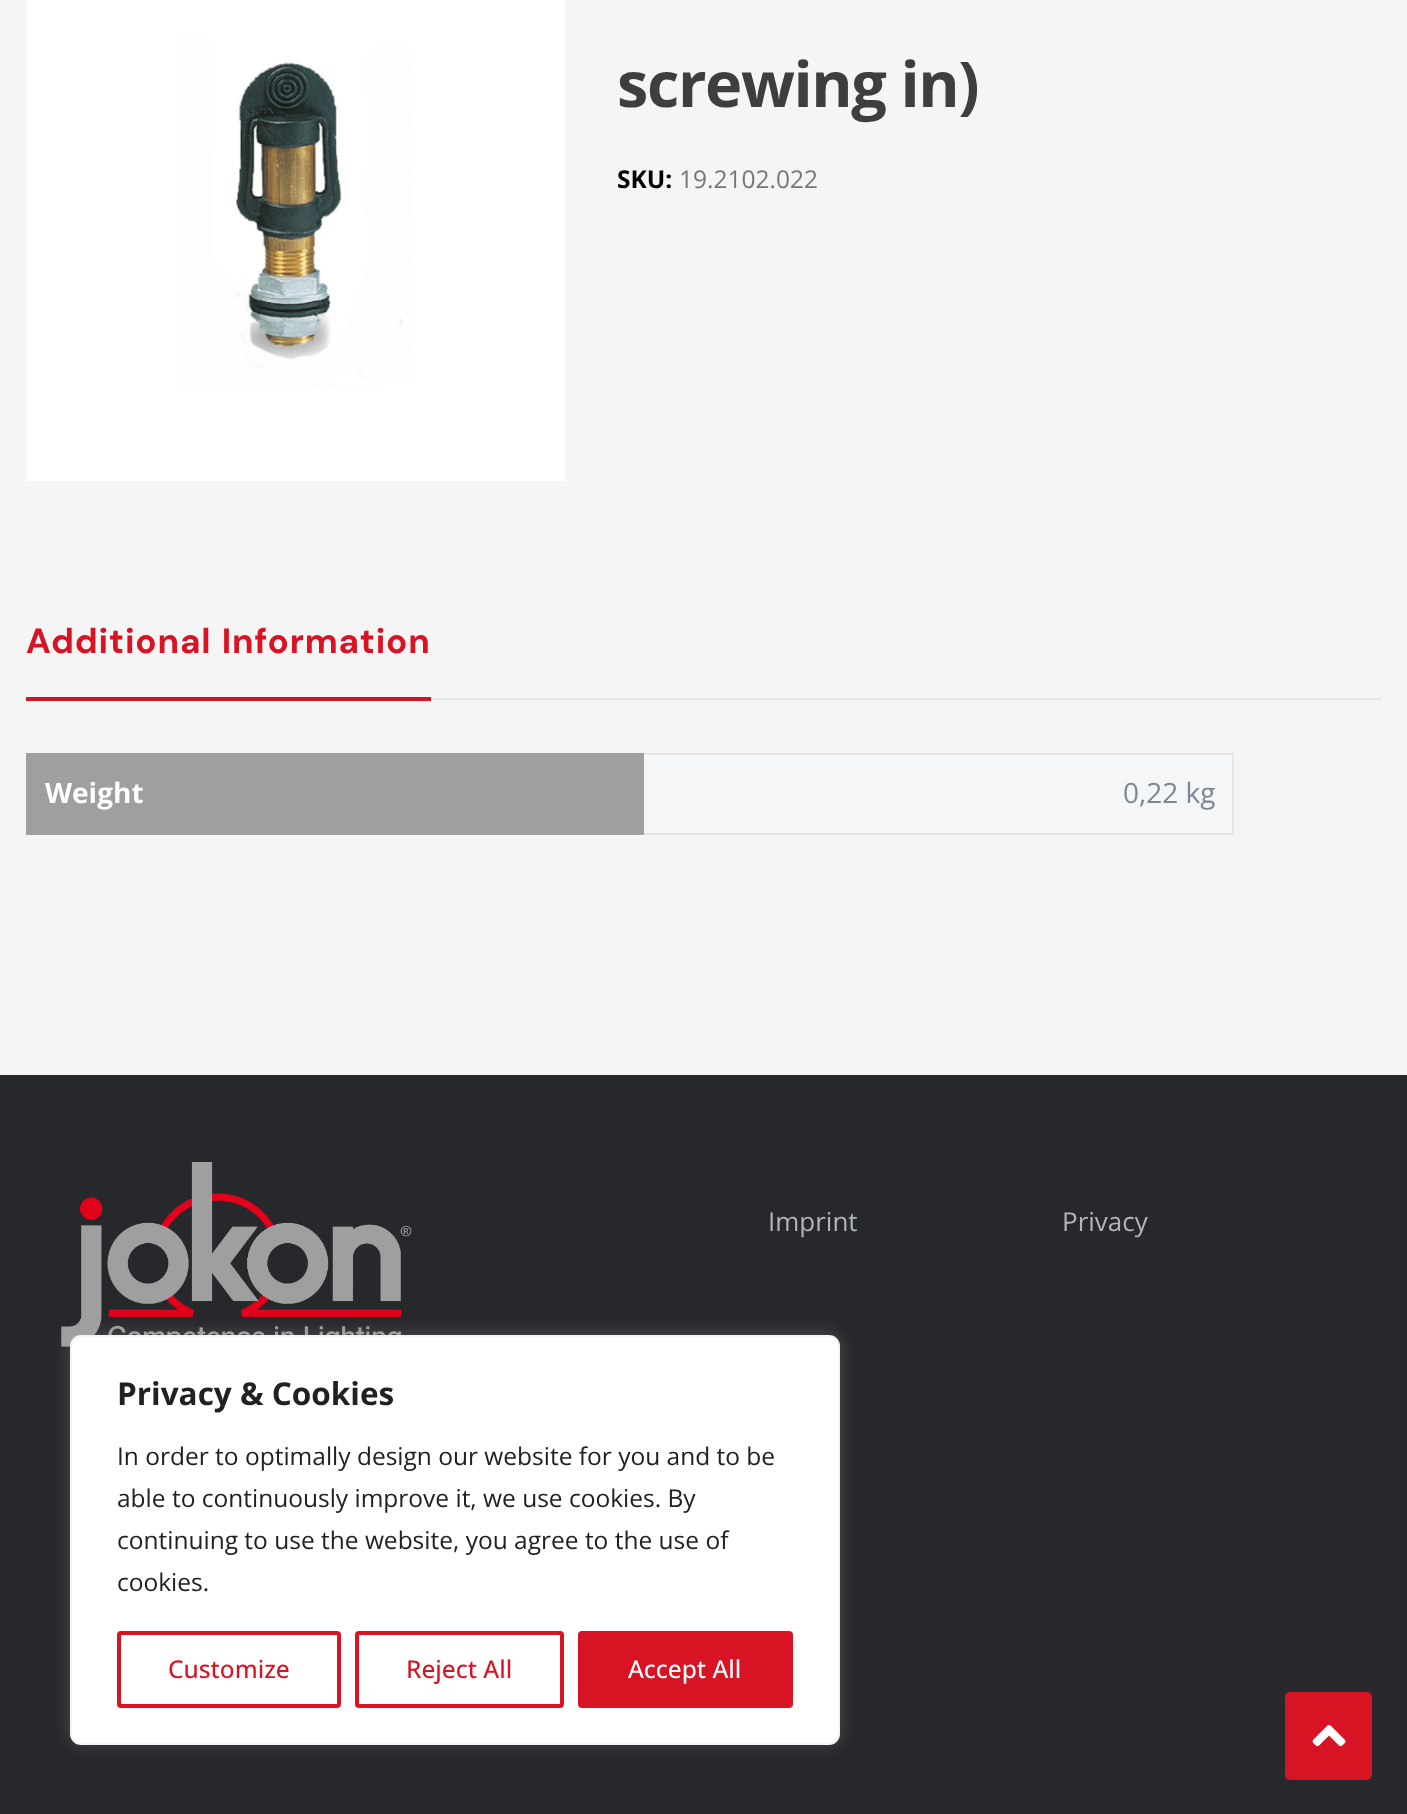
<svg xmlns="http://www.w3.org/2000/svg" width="1407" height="1814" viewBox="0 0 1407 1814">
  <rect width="100%" height="100%" fill="rgb(245,245,245)"/>
  <image x="26" y="0" width="539" height="481" href="pic1.png"/>
  <text x="617" y="107" font-family="Open Sans" font-size="63" font-weight="bold" letter-spacing="-1.4" fill="rgb(62,62,62)">screwing in)</text>
  <text x="617" y="188" font-family="Open Sans" font-size="24.5" font-weight="bold" fill="rgb(0,0,0)">SKU:</text>
  <text x="679" y="188" font-family="Open Sans" font-size="24.5" fill="rgb(119,119,119)">19.2102.022</text>
  <rect x="431" y="698" width="950" height="2" fill="rgb(229,229,229)"/>
  <text x="26" y="653" word-spacing="1" font-family="DM Sans" font-size="35" font-weight="bold" letter-spacing="0.9" fill="rgb(216,19,36)">Additional Information</text>
  <rect x="26" y="697" width="405" height="4" fill="rgb(216,19,36)"/>
  <rect x="644" y="755" width="588" height="78" fill="rgb(245,246,248)"/>
  <rect x="644" y="833" width="590" height="2" fill="rgb(229,229,229)"/>
  <rect x="28" y="755" width="614" height="78" fill="rgb(159,159,158)"/>
  <rect x="642" y="753" width="592" height="2" fill="rgb(229,229,229)"/>
  <rect x="26" y="753" width="618" height="2" fill="rgb(159,159,158)"/>
  <rect x="642" y="753" width="2" height="82" fill="rgb(159,159,158)"/>
  <rect x="26" y="833" width="618" height="2" fill="rgb(159,159,158)"/>
  <rect x="26" y="753" width="2" height="82" fill="rgb(159,159,158)"/>
  <text x="45" y="803" font-family="Open Sans" font-size="28" font-weight="bold" fill="rgb(255,255,255)">Weight</text>
  <rect x="1232" y="753" width="2" height="82" fill="rgb(229,229,229)"/>
  <text x="1123" y="803" font-family="Open Sans" font-size="28" fill="rgb(125,135,148)">0,22 kg</text>
  <rect x="0" y="1075" width="1407" height="739" fill="rgb(39,40,44)"/>
  <image x="61" y="1162" width="351" height="185" href="pic2.png"/>
  <g font-family="Open Sans" font-size="26" fill="rgb(175,181,187)">
    <text x="768" y="1231">Imprint</text>
    <text x="1062" y="1231">Privacy</text>
  </g>
  <rect x="70" y="1334" width="770" height="409" rx="11" fill="rgba(172,171,171,0.3)" filter="blur(9px)"/>
  <rect x="71" y="1336" width="768" height="408" rx="10" fill="rgb(255,255,255)" stroke="rgb(244,244,244)" stroke-width="2"/>
  <text x="117" y="1405" font-family="Open Sans" font-size="31.5" font-weight="bold" fill="rgb(33,33,33)">Privacy &amp; Cookies</text>
  <g font-family="Open Sans" font-size="24.5" fill="rgb(33,33,33)">
    <text>
      <tspan x="117" y="1465">In order to optimally design our website for you and to be</tspan>
      <tspan x="117" y="1507">able to continuously improve it, we use cookies. By</tspan>
      <tspan x="117" y="1549">continuing to use the website, you agree to the use of</tspan>
      <tspan x="117" y="1591">cookies.</tspan>
    </text>
  </g>
  <rect x="119" y="1633" width="220" height="73" rx="2" fill="none" stroke="rgb(216,19,36)" stroke-width="4"/>
  <text x="168" y="1678" font-family="Open Sans" font-size="24.5" font-weight="500" fill="rgb(216,19,36)">Customize</text>
  <rect x="357" y="1633" width="205" height="73" rx="2" fill="none" stroke="rgb(216,19,36)" stroke-width="4"/>
  <text x="406" y="1678" font-family="Open Sans" font-size="24.5" font-weight="500" fill="rgb(216,19,36)">Reject All</text>
  <rect x="580" y="1633" width="211" height="73" rx="2" fill="rgb(216,19,36)" stroke="rgb(216,19,36)" stroke-width="4"/>
  <text x="628" y="1678" font-family="Open Sans" font-size="24.5" font-weight="500" fill="rgb(255,255,255)">Accept All</text>
  <rect x="1285" y="1692" width="87" height="88" rx="5" fill="rgb(216,19,36)"/>
  <image x="1312" y="1725" width="34" height="22" href="pic3.png"/>
</svg>
